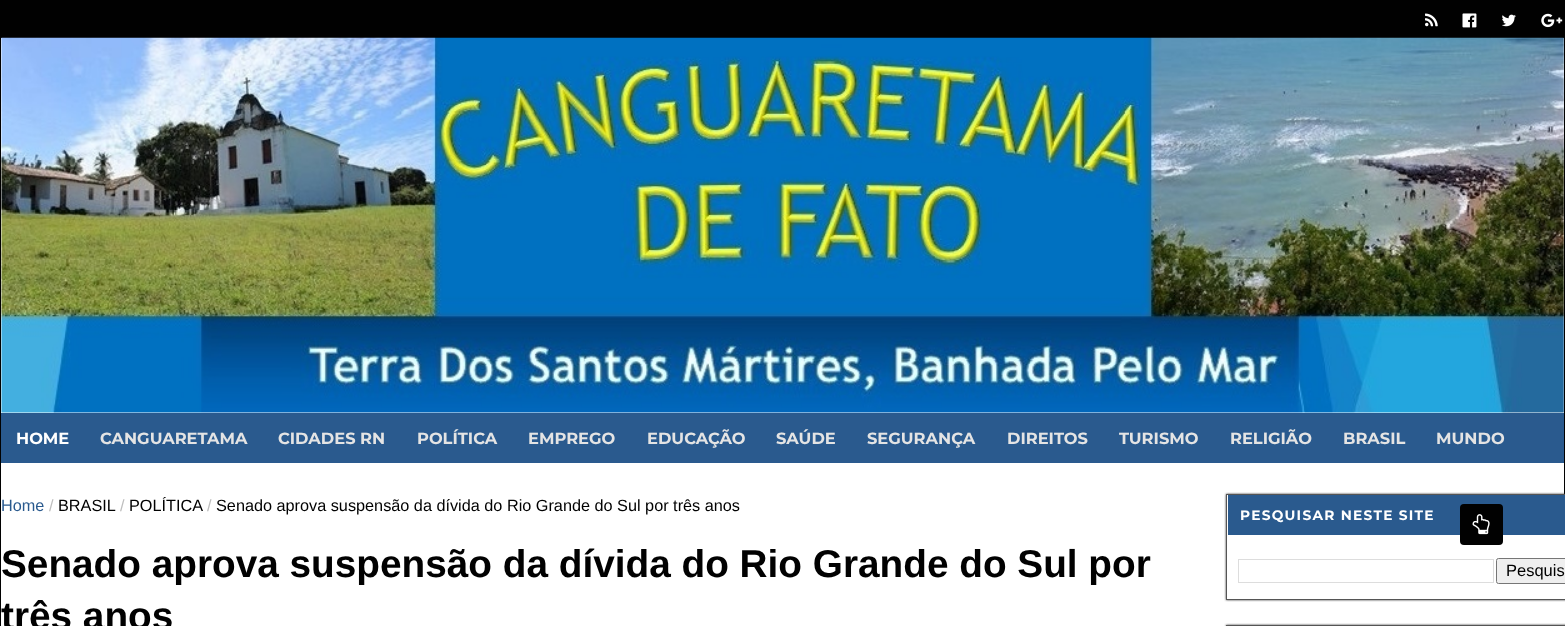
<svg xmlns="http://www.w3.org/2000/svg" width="1565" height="626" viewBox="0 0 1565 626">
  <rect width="100%" height="100%" fill="rgb(255,255,255)"/>
  <rect x="1564" y="0" width="1" height="494" fill="rgb(1,1,1)"/>
  <rect x="0" y="0" width="1" height="626" fill="rgb(1,1,1)"/>
  <rect x="1" y="0" width="1563" height="38" fill="rgb(1,1,1)"/>
  <image x="1425" y="13" width="13" height="14" href="pic1.png"/>
  <image x="1462" y="13" width="15" height="15" href="pic2.png"/>
  <image x="1502" y="14" width="14" height="13" href="pic3.png"/>
  <image x="1541" y="13" width="22" height="15" href="pic4.png"/>
  <image x="1" y="37" width="1563" height="376" href="pic5.png"/>
  <rect x="1" y="413" width="1563" height="50" fill="rgb(42,90,142)"/>
  <text x="16" y="444" font-family="Montserrat" font-size="16.25" font-weight="bold" fill="rgb(255,255,255)">HOME</text>
  <g font-family="Montserrat" font-size="16.25" font-weight="bold" fill="rgb(228,228,228)">
    <text x="100" y="444">CANGUARETAMA</text>
    <text x="278" y="444">CIDADES RN</text>
    <text x="417" y="444">POLÍTICA</text>
    <text x="528" y="444">EMPREGO</text>
    <text x="647" y="444">EDUCAÇÃO</text>
    <text x="776" y="444">SAÚDE</text>
    <text x="867" y="444">SEGURANÇA</text>
    <text x="1007" y="444">DIREITOS</text>
    <text x="1119" y="444">TURISMO</text>
    <text x="1230" y="444">RELIGIÃO</text>
    <text x="1343" y="444">BRASIL</text>
    <text x="1436" y="444">MUNDO</text>
  </g>
  <text x="1" y="511" font-family="Arimo" font-size="16.25" fill="rgb(42,90,142)">Home</text>
  <text x="49" y="511" font-family="Arimo" font-size="16.25" fill="rgb(189,189,189)">/</text>
  <text x="58" y="511" font-family="Arimo" font-size="16.25" fill="rgb(1,1,1)">BRASIL</text>
  <text x="120" y="511" font-family="Arimo" font-size="16.25" fill="rgb(189,189,189)">/</text>
  <text x="129" y="511" font-family="Arimo" font-size="16.25" fill="rgb(1,1,1)">POLÍTICA</text>
  <text x="207" y="511" font-family="Arimo" font-size="16.25" fill="rgb(189,189,189)">/</text>
  <text x="216" y="511" font-family="Arimo" font-size="16.25" fill="rgb(1,1,1)">Senado aprova suspensão da dívida do Rio Grande do Sul por três anos</text>
  <g font-family="Arimo" font-size="38.75" font-weight="bold" fill="rgb(1,1,1)">
    <text>
      <tspan x="1" y="577">Senado aprova suspensão da dívida do Rio Grande do Sul por</tspan>
      <tspan x="1" y="629">três anos</tspan>
    </text>
  </g>
  <rect x="1226" y="494" width="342" height="106" fill="rgb(51,51,51)" filter="blur(1px)"/>
  <rect x="1226.5" y="494.5" width="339" height="105" fill="rgb(255,255,255)" stroke="rgb(85,85,85)"/>
  <rect x="1228" y="495" width="337" height="40" fill="rgb(42,90,142)"/>
  <text x="1240" y="520" font-family="Montserrat" font-size="13.75" font-weight="bold" letter-spacing="1.25" fill="rgb(255,255,255)">PESQUISAR NESTE SITE</text>
  <rect x="1238.5" y="559.5" width="255" height="23" fill="none" stroke="rgb(221,221,221)"/>
  <rect x="1496.5" y="558.5" width="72" height="25" rx="2" fill="rgb(239,239,239)" stroke="rgb(118,118,118)"/>
  <text x="1506" y="576" font-family="Liberation Sans" font-size="16.5" fill="rgb(1,1,1)">Pesquis</text>
  <rect x="1226" y="625" width="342" height="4" fill="rgb(51,51,51)" filter="blur(1px)"/>
  <rect x="1226.5" y="625.5" width="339" height="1" fill="none" stroke="rgb(85,85,85)"/>
  <rect x="1460" y="504" width="43" height="41" rx="4" fill="rgb(1,1,1)"/>
  <image x="1472" y="514" width="18" height="21" href="pic6.png"/>
</svg>
